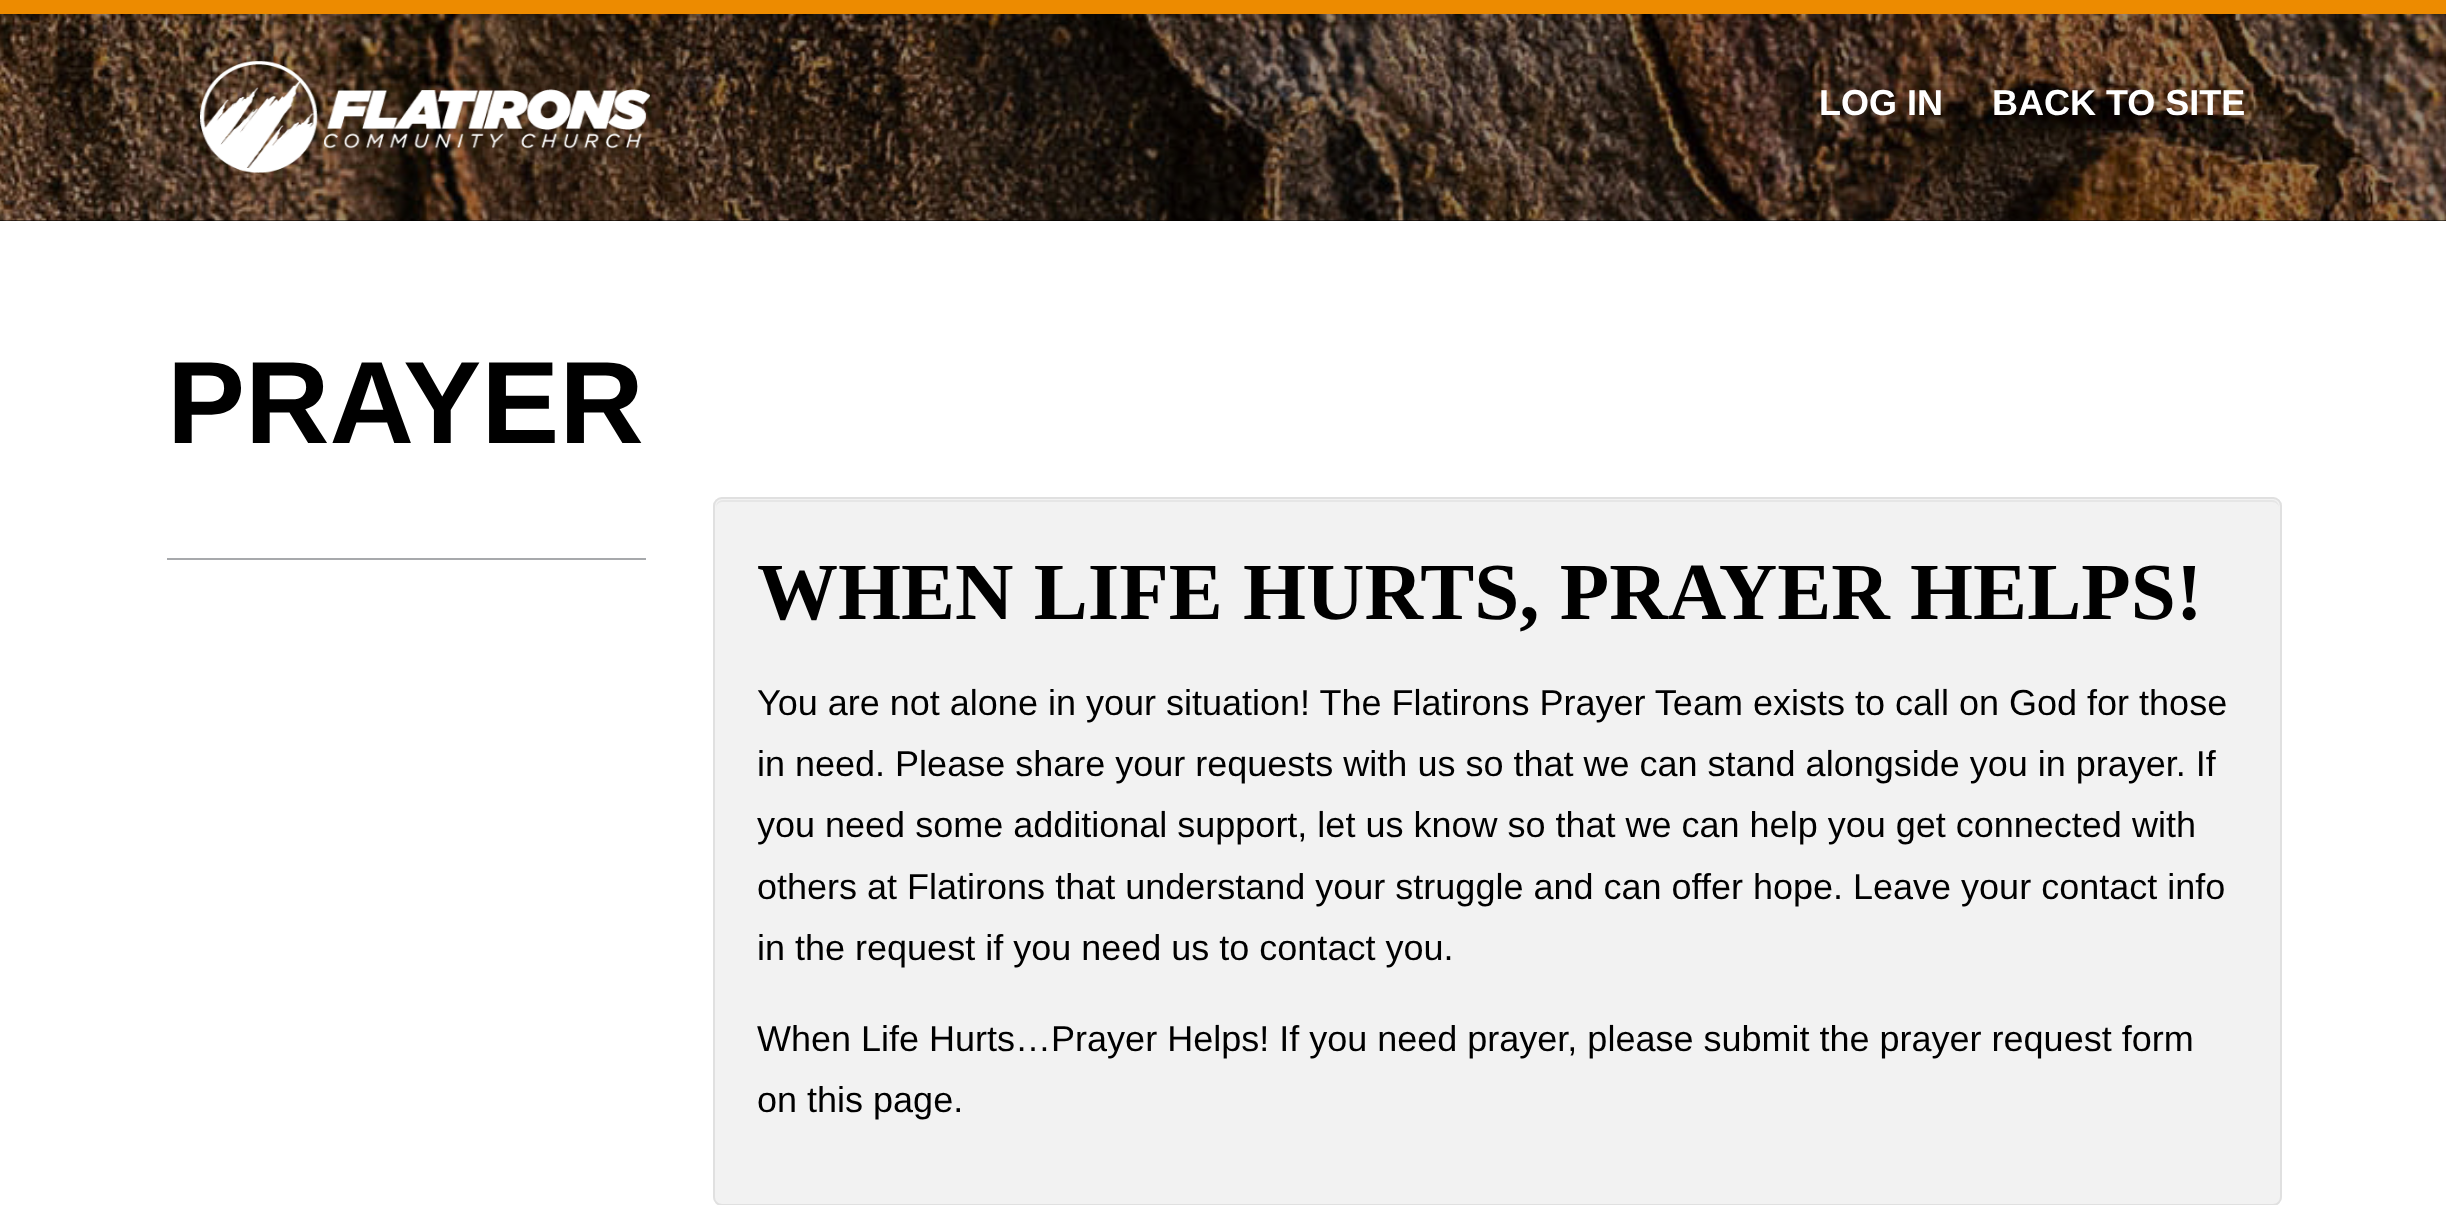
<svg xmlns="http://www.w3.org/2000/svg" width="2446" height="1205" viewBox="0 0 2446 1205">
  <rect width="100%" height="100%" fill="rgb(255,255,255)"/>
  <rect x="0" y="220" width="2446" height="1" fill="rgb(0,0,0)"/>
  <image x="0" y="14" width="2446" height="207" href="pic1.png"/>
  <rect x="0" y="0" width="2446" height="14" fill="rgb(237,139,0)"/>
  <image x="200" y="61" width="450" height="112" href="pic2.png"/>
  <g font-family="Liberation Sans" font-size="36" font-weight="bold" fill="rgb(255,255,255)">
    <text x="1819" y="115">LOG IN</text>
    <text x="1992" y="115">BACK TO SITE</text>
  </g>
  <text x="167" y="443" font-family="Liberation Sans" font-size="117" font-weight="bold" fill="rgb(0,0,0)">PRAYER</text>
  <rect x="167" y="558" width="479" height="2" fill="rgb(167,169,172)"/>
  <rect x="713" y="497" width="1569" height="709" rx="9" fill="rgb(242,242,242)"/>
  <path d="M722 502H2272C2276 502 2279 505 2279 508C2279 504 2277 500 2272 500H723C718 500 716 504 716 508C716 505 719 502 722 502Z" fill="rgb(230,230,230)"/>
  <rect x="714" y="498" width="1567" height="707" rx="8" fill="none" stroke="rgb(224,224,224)" stroke-width="2"/>
  <text x="757" y="619" font-family="Liberation Serif" font-size="81" font-weight="bold" fill="rgb(0,0,0)">WHEN LIFE HURTS, PRAYER HELPS!</text>
  <g font-family="Liberation Sans" font-size="36" fill="rgb(0,0,0)">
    <text>
      <tspan x="757" y="715">You are not alone in your situation! The Flatirons Prayer Team exists to call on God for those</tspan>
      <tspan x="757" y="776">in need. Please share your requests with us so that we can stand alongside you in prayer. If</tspan>
      <tspan x="757" y="837">you need some additional support, let us know so that we can help you get connected with</tspan>
      <tspan x="757" y="899">others at Flatirons that understand your struggle and can offer hope. Leave your contact info</tspan>
      <tspan x="757" y="960">in the request if you need us to contact you.</tspan>
    </text>
    <text>
      <tspan x="757" y="1051">When Life Hurts…Prayer Helps! If you need prayer, please submit the prayer request form</tspan>
      <tspan x="757" y="1112">on this page.</tspan>
    </text>
  </g>
</svg>
